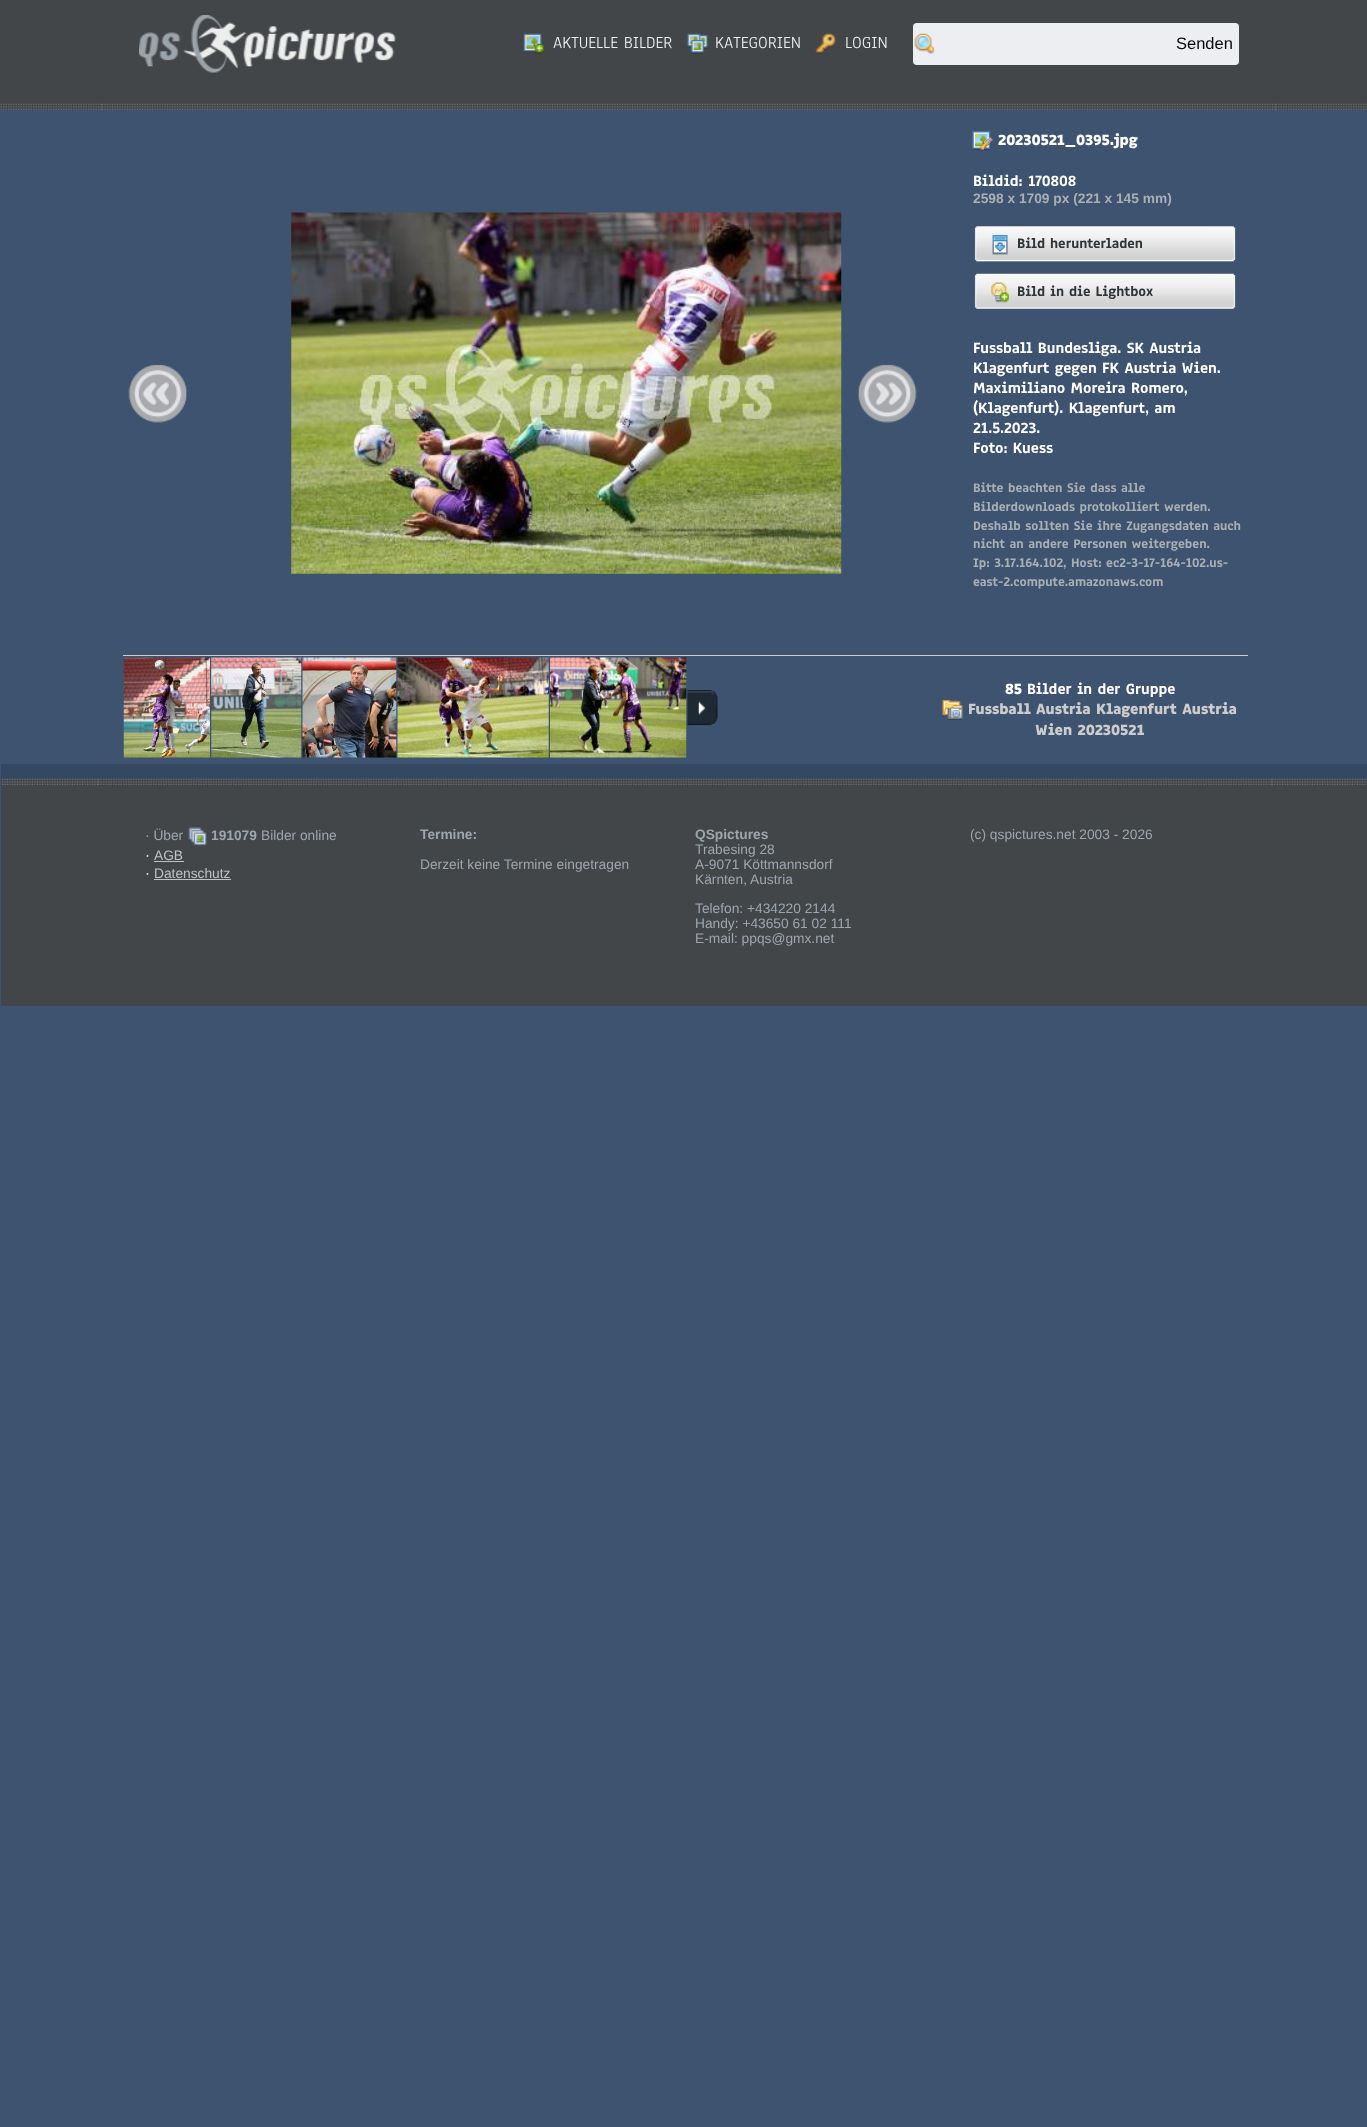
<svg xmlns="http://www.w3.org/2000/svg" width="1367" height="2127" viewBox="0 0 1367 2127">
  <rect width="100%" height="100%" fill="rgb(62,83,112)"/>
  <rect x="0" y="0" width="1367" height="110" fill="rgb(67,70,72)"/>
  <image x="0" y="103" width="1367" height="7" href="pic1.png"/>
  <image x="139" y="15" width="257" height="58" href="pic2.png"/>
  <image x="523" y="33" width="21" height="21" href="pic3.png"/>
  <text x="553" y="48" font-family="Anaheim" font-size="17.5" fill="rgb(236,238,241)">AKTUELLE BILDER</text>
  <image x="686" y="33" width="22" height="21" href="pic4.png"/>
  <text x="715" y="48" font-family="Anaheim" font-size="17.5" fill="rgb(236,238,241)">KATEGORIEN</text>
  <image x="815" y="33" width="21" height="21" href="pic5.png"/>
  <text x="845" y="48" font-family="Anaheim" font-size="17.5" fill="rgb(236,238,241)">LOGIN</text>
  <rect x="913" y="23" width="326" height="42" rx="4" fill="rgb(236,238,241)"/>
  <image x="914" y="33" width="21" height="21" href="pic6.png"/>
  <text x="1176" y="49" font-family="Liberation Sans" font-size="16.5" fill="rgb(6,8,11)">Senden</text>
  <image x="972" y="131" width="21" height="21" href="pic7.png"/>
  <text x="998" y="145" font-family="Anaheim" font-size="16.25" font-weight="800" fill="rgb(255,255,255)">20230521_0395.jpg</text>
  <text x="973" y="186" font-family="Anaheim" font-size="16.25" font-weight="bold" fill="rgb(255,255,255)">Bildid: 170808</text>
  <text x="973" y="203" font-family="Liberation Sans" font-size="13.75" font-weight="bold" fill="rgb(168,175,181)">2598 x 1709 px (221 x 145 mm)</text>
  <image x="974" y="226" width="262" height="36" href="pic8.png"/>
  <image x="992" y="235" width="16" height="20" href="pic9.png"/>
  <text x="1017" y="248" font-family="Anaheim" font-size="15" font-weight="bold" fill="rgb(47,52,56)">Bild herunterladen</text>
  <image x="974" y="273" width="262" height="36" href="pic10.png"/>
  <image x="991" y="282" width="18" height="21" href="pic11.png"/>
  <text x="1017" y="296" font-family="Anaheim" font-size="15" font-weight="bold" fill="rgb(47,52,56)">Bild in die Lightbox</text>
  <g font-family="Anaheim" font-size="16.25" font-weight="bold" fill="rgb(255,255,255)">
    <text>
      <tspan x="973" y="353">Fussball Bundesliga. SK Austria</tspan>
      <tspan x="973" y="373">Klagenfurt gegen FK Austria Wien.</tspan>
      <tspan x="973" y="393">Maximiliano Moreira Romero,</tspan>
      <tspan x="973" y="413">(Klagenfurt). Klagenfurt, am</tspan>
      <tspan x="973" y="433">21.5.2023.</tspan>
      <tspan x="973" y="453">Foto: Kuess</tspan>
    </text>
  </g>
  <g font-family="Anaheim" font-size="13.75" font-weight="bold" fill="rgb(168,175,181)">
    <text>
      <tspan x="973" y="492">Bitte beachten Sie dass alle</tspan>
      <tspan x="973" y="511">Bilderdownloads protokolliert werden.</tspan>
      <tspan x="973" y="530">Deshalb sollten Sie ihre Zugangsdaten auch</tspan>
      <tspan x="973" y="548">nicht an andere Personen weitergeben.</tspan>
      <tspan x="973" y="567">Ip: 3.17.164.102, Host: ec2-3-17-164-102.us-</tspan>
      <tspan x="973" y="586">east-2.compute.amazonaws.com</tspan>
    </text>
  </g>
  <rect x="123" y="655" width="1125" height="1" fill="rgb(204,204,204)"/>
  <image x="128" y="364" width="59" height="59" href="pic12.png"/>
  <image x="291" y="212" width="551" height="362" href="pic13.png"/>
  <image x="858" y="364" width="59" height="59" href="pic14.png"/>
  <image x="123" y="657" width="87" height="101" href="pic15.png"/>
  <image x="211" y="657" width="91" height="101" href="pic16.png"/>
  <image x="302" y="657" width="95" height="101" href="pic17.png"/>
  <image x="397" y="657" width="152" height="101" href="pic18.png"/>
  <image x="550" y="657" width="137" height="101" href="pic19.png"/>
  <image x="687" y="690" width="31" height="36" href="pic20.png"/>
  <text x="1005" y="694" font-family="Anaheim" font-size="16.25" font-weight="800" fill="rgb(255,255,255)">85</text>
  <text x="1027" y="694" font-family="Anaheim" font-size="16.25" font-weight="bold" fill="rgb(255,255,255)">Bilder in der Gruppe</text>
  <image x="942" y="700" width="21" height="20" href="pic21.png"/>
  <g font-family="Anaheim" font-size="16.25" font-weight="800" fill="rgb(204,204,204)">
    <text x="968" y="714">Fussball Austria Klagenfurt Austria</text>
    <text x="1035" y="735">Wien 20230521</text>
  </g>
  <rect x="1" y="764" width="1366" height="15" fill="rgb(52,72,100)"/>
  <rect x="1" y="779" width="1366" height="227" fill="rgb(67,70,72)"/>
  <image x="1" y="778" width="1366" height="7" href="pic22.png"/>
  <text x="145" y="840" font-family="Liberation Sans" font-size="13.75" fill="rgb(157,166,174)">· Über</text>
  <image x="188" y="827" width="19" height="19" href="pic23.png"/>
  <text x="211" y="840" font-family="Liberation Sans" font-size="13.75" font-weight="bold" fill="rgb(157,166,174)">191079</text>
  <text x="261" y="840" font-family="Liberation Sans" font-size="13.75" fill="rgb(157,166,174)">Bilder online</text>
  <text x="145" y="860" font-family="Liberation Sans" font-size="15" fill="rgb(236,238,241)">·</text>
  <text x="154" y="860" font-family="Liberation Sans" font-size="13.75" fill="rgb(190,192,195)">AGB</text>
  <rect x="154" y="861" width="30" height="1" fill="rgb(190,192,195)"/>
  <text x="145" y="878" font-family="Liberation Sans" font-size="15" fill="rgb(236,238,241)">·</text>
  <text x="154" y="878" font-family="Liberation Sans" font-size="13.75" fill="rgb(190,192,195)">Datenschutz</text>
  <rect x="154" y="879" width="77" height="1" fill="rgb(190,192,195)"/>
  <text x="420" y="839" font-family="Liberation Sans" font-size="13.75" font-weight="bold" fill="rgb(157,166,174)">Termine:</text>
  <text x="420" y="869" font-family="Liberation Sans" font-size="13.75" fill="rgb(157,166,174)">Derzeit keine Termine eingetragen</text>
  <text x="695" y="839" font-family="Liberation Sans" font-size="13.75" font-weight="bold" fill="rgb(157,166,174)">QSpictures</text>
  <g font-family="Liberation Sans" font-size="13.75" fill="rgb(157,166,174)">
    <text>
      <tspan x="695" y="854">Trabesing 28</tspan>
      <tspan x="695" y="869">A-9071 Köttmannsdorf</tspan>
      <tspan x="695" y="884">Kärnten, Austria</tspan>
    </text>
    <text>
      <tspan x="695" y="913">Telefon: +434220 2144</tspan>
      <tspan x="695" y="928">Handy: +43650 61 02 111</tspan>
      <tspan x="695" y="943">E-mail: ppqs@gmx.net</tspan>
    </text>
    <text x="970" y="839">(c) qspictures.net 2003 - 2026</text>
  </g>
</svg>
